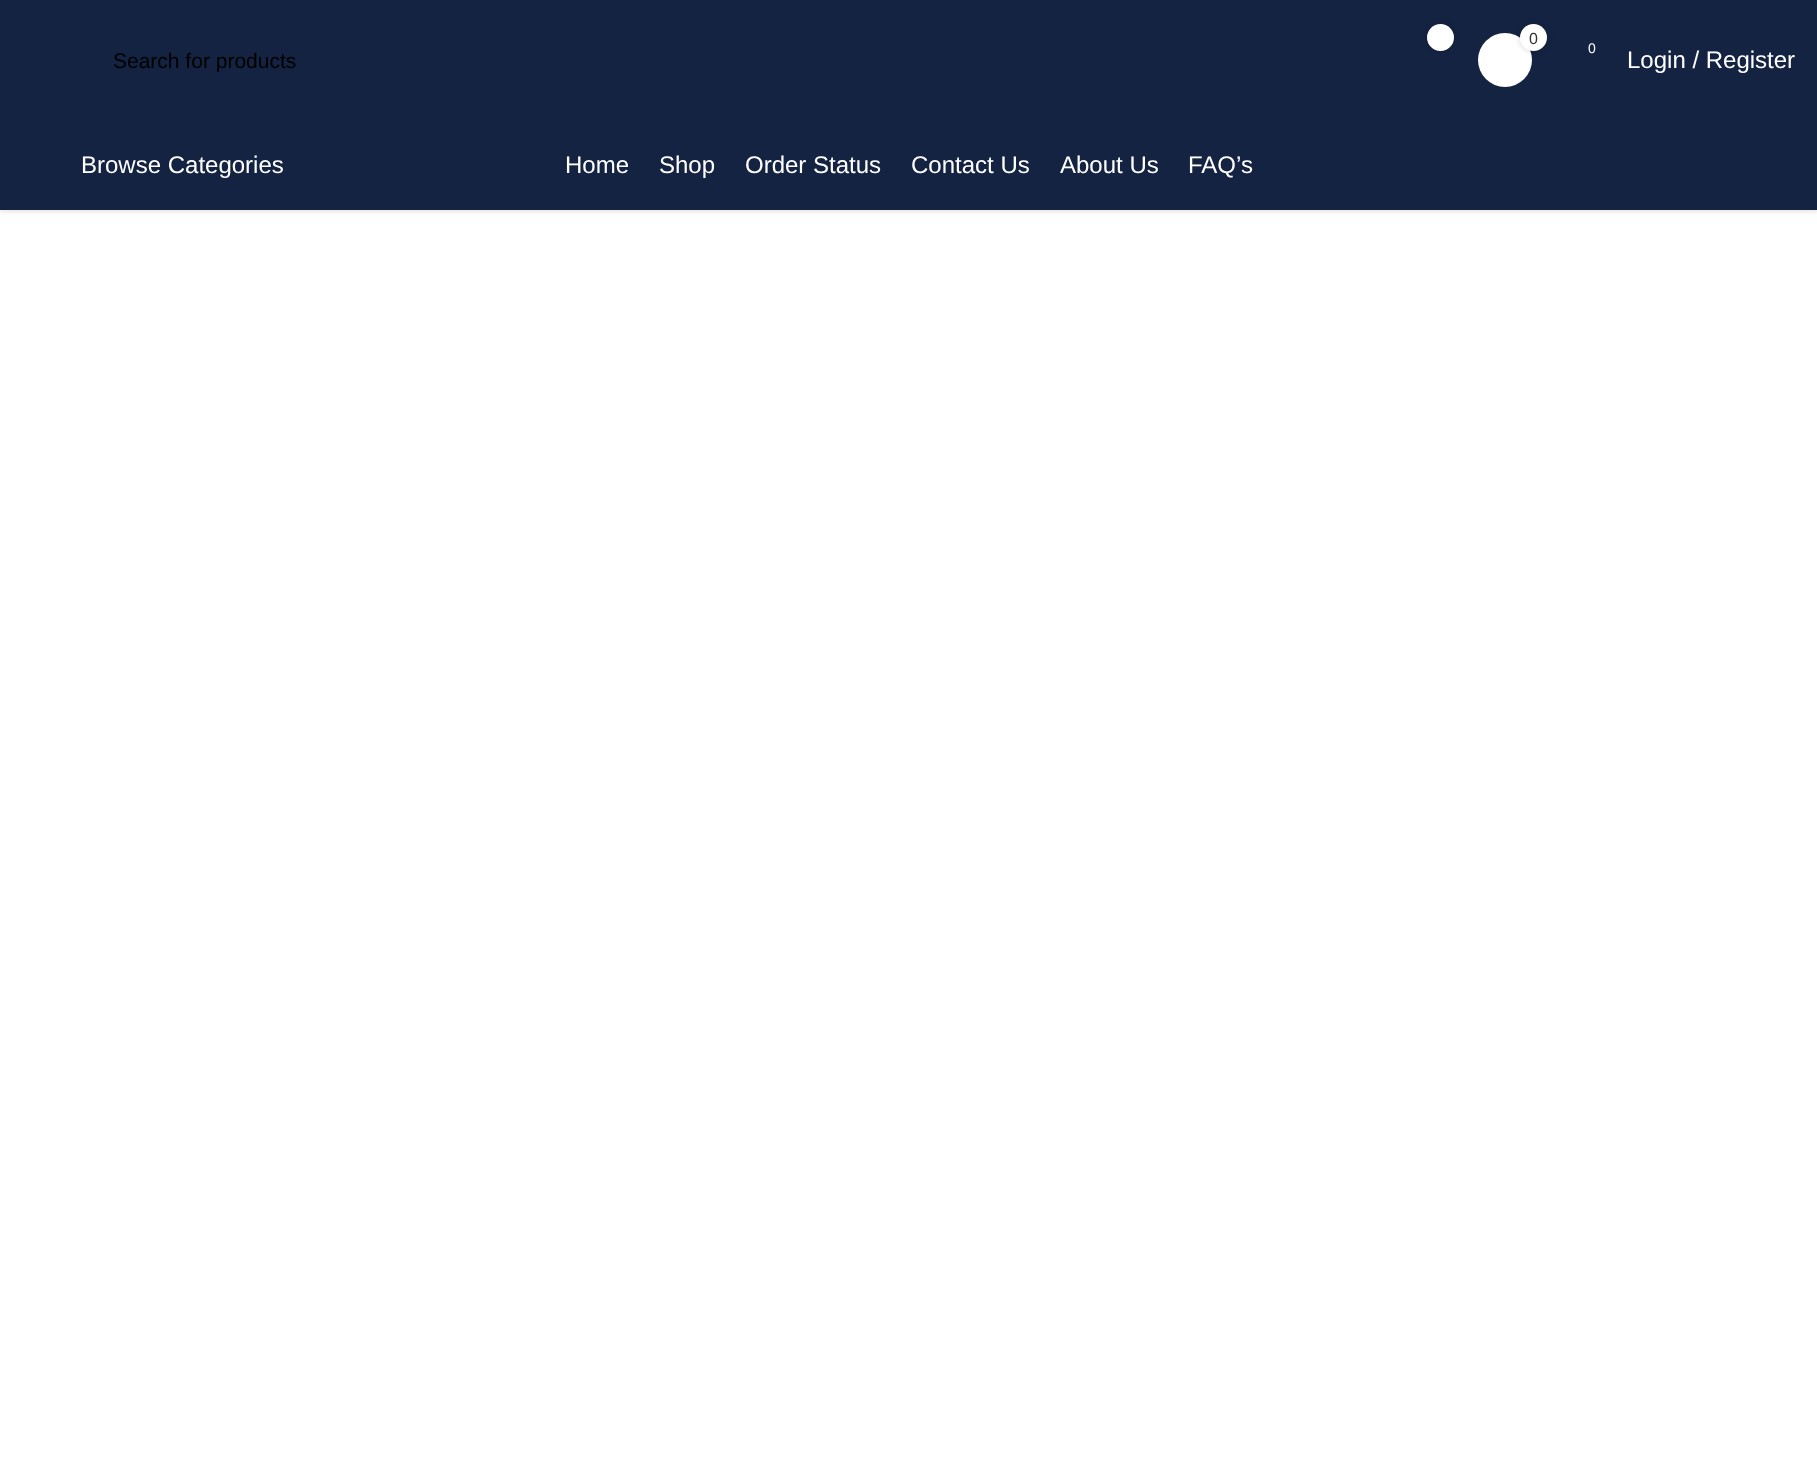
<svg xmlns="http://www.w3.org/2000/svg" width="1817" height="1477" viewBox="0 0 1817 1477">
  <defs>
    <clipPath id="clip1"><rect x="113" y="48" width="1192" height="24"/></clipPath>
  </defs>
  <rect width="100%" height="100%" fill="rgb(255,255,255)"/>
  <rect x="0" y="2" width="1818" height="210" fill="rgba(0,0,0,0.1)" filter="blur(2px)"/>
  <rect x="0" y="0" width="1817" height="210" fill="rgb(20,35,65)"/>
  <g clip-path="url(#clip1)">
    <text x="113" y="68" font-family="Liberation Sans" font-size="21" fill="rgb(0,0,0)">Search for products</text>
  </g>
  <rect x="1427" y="24" width="27" height="27" rx="13.5" fill="rgba(0,0,0,0.17)" filter="blur(3px)"/>
  <circle cx="1440.5" cy="37.5" r="13.5" fill="rgb(255,255,255)"/>
  <circle cx="1505" cy="60" r="27" fill="rgb(255,255,255)"/>
  <rect x="1520" y="24" width="27" height="27" rx="13.5" fill="rgba(0,0,0,0.17)" filter="blur(3px)"/>
  <circle cx="1533.5" cy="37.5" r="13.5" fill="rgb(255,255,255)"/>
  <text x="1529" y="44" font-family="Liberation Sans" font-size="16" fill="rgb(51,51,51)">0</text>
  <text x="1588" y="53" font-family="Liberation Sans" font-size="14" fill="rgb(255,255,255)">0</text>
  <g font-family="Liberation Sans" font-size="24" fill="rgb(255,255,255)">
    <text x="1627" y="68">Login / Register</text>
    <text x="81" y="173">Browse Categories</text>
    <text x="565" y="173">Home</text>
    <text x="659" y="173">Shop</text>
    <text x="745" y="173">Order Status</text>
    <text x="911" y="173">Contact Us</text>
    <text x="1060" y="173">About Us</text>
    <text x="1188" y="173">FAQ’s</text>
  </g>
</svg>
